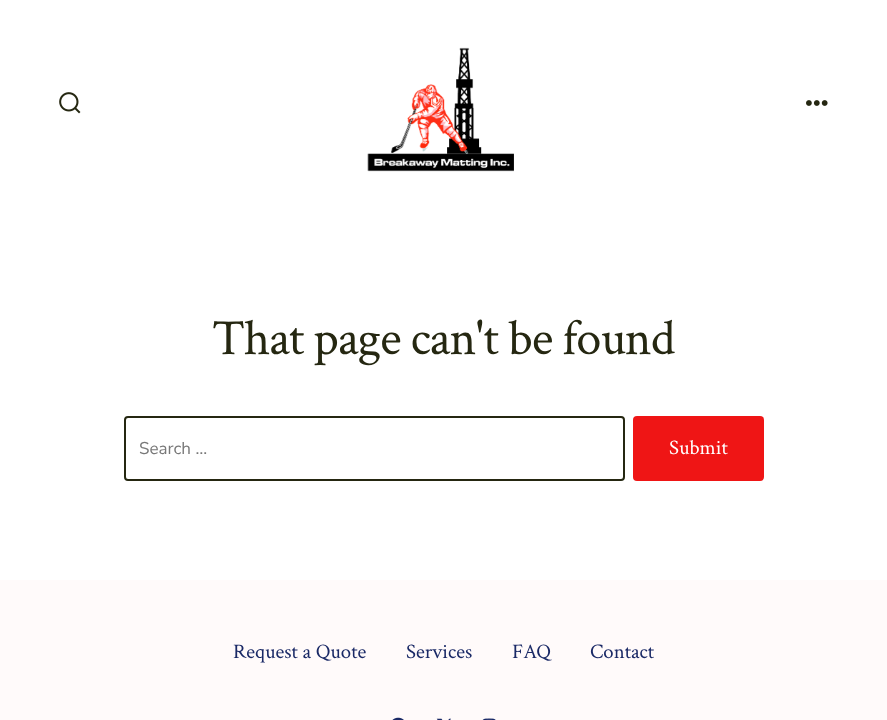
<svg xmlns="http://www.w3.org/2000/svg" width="887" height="720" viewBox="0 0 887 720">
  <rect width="100%" height="100%" fill="rgb(255,255,255)"/>
  <image x="59" y="92" width="22" height="22" href="pic1.png"/>
  <image x="367" y="47" width="147" height="125" href="pic2.png"/>
  <image x="806" y="100" width="22" height="6" href="pic3.png"/>
  <text x="212" y="354" font-family="Crimson Text" font-size="50.5" letter-spacing="-1" fill="rgb(37,39,17)">That page can't be found</text>
  <rect x="125" y="417" width="499" height="63" rx="3" fill="none" stroke="rgb(37,39,17)" stroke-width="2"/>
  <text x="139" y="454" font-family="Nunito Sans" font-size="17" fill="rgb(120,120,120)">Search …</text>
  <rect x="633" y="416" width="131" height="65" rx="4" fill="rgb(239,21,21)"/>
  <text x="669" y="454" font-family="Crimson Text" font-size="20.75" fill="rgb(255,255,255)">Submit</text>
  <rect x="0" y="580" width="887" height="140" fill="rgb(255,250,250)"/>
  <g font-family="Crimson Text" font-size="20.75" fill="rgb(26,41,102)">
    <text x="233" y="658">Request a Quote</text>
    <text x="406" y="658">Services</text>
    <text x="512" y="658">FAQ</text>
    <text x="590" y="658">Contact</text>
  </g>
  <image x="392" y="717" width="12" height="3" href="pic4.png"/>
  <image x="436" y="718" width="15" height="2" href="pic5.png"/>
  <image x="482" y="718" width="14" height="2" href="pic6.png"/>
</svg>
